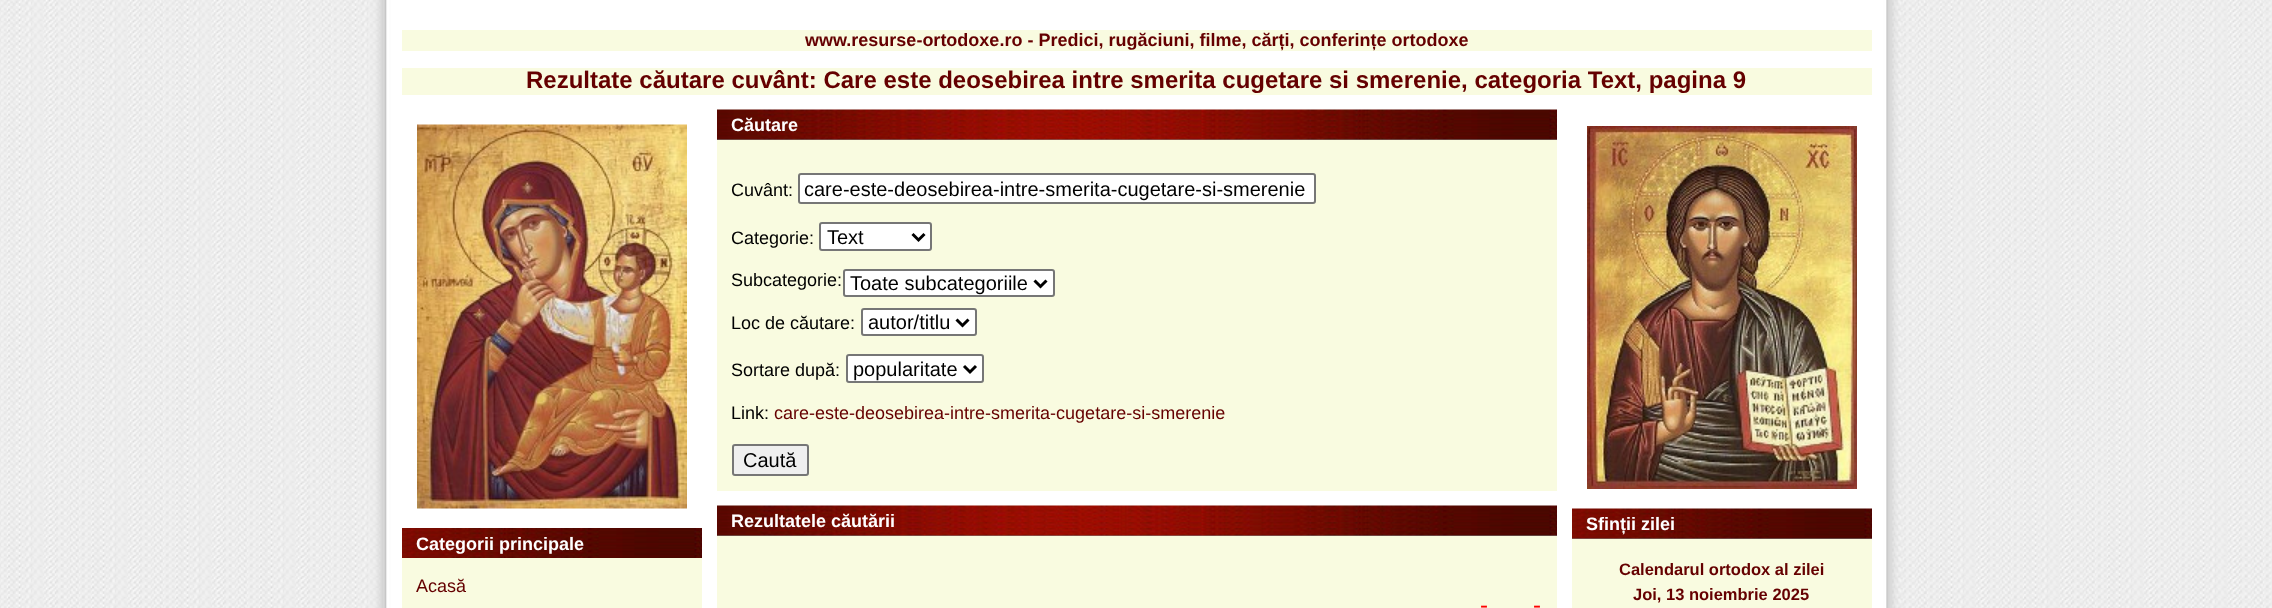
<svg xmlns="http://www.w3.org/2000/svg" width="2272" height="608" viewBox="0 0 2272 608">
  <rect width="100%" height="100%" fill="rgb(255,255,255)"/>
  <image x="0" y="0" width="2272" height="608" href="pic1.png"/>
  <rect x="402" y="30" width="1470" height="21" fill="rgb(249,251,224)"/>
  <text x="805" y="46" font-family="Liberation Sans" font-size="18" font-weight="bold" fill="rgb(101,0,0)">www.resurse-ortodoxe.ro - Predici, rugăciuni, filme, cărți, conferințe ortodoxe</text>
  <rect x="402" y="68" width="1470" height="27" fill="rgb(249,251,224)"/>
  <text x="526" y="88" font-family="Liberation Sans" font-size="24" font-weight="bold" fill="rgb(101,0,0)">Rezultate căutare cuvânt: Care este deosebirea intre smerita cugetare si smerenie, categoria Text, pagina 9</text>
  <image x="417" y="124" width="270" height="385" href="pic2.png"/>
  <rect x="402" y="558" width="300" height="50" fill="rgb(249,251,224)"/>
  <image x="402" y="528" width="300" height="30" href="pic3.png"/>
  <text x="416" y="550" font-family="Liberation Sans" font-size="18" font-weight="bold" fill="rgb(255,255,255)">Categorii principale</text>
  <text x="416" y="592" font-family="Liberation Sans" font-size="18" fill="rgb(101,0,0)">Acasă</text>
  <rect x="717" y="140" width="840" height="351" fill="rgb(249,251,224)"/>
  <rect x="717" y="139" width="840" height="1" fill="rgb(128,128,128)"/>
  <image x="717" y="109" width="840" height="31" href="pic4.png"/>
  <text x="731" y="131" font-family="Liberation Sans" font-size="18" font-weight="bold" fill="rgb(255,255,255)">Căutare</text>
  <text x="731" y="196" font-family="Liberation Sans" font-size="18" fill="rgb(0,0,0)">Cuvânt:</text>
  <rect x="799" y="174" width="516" height="29" rx="2" fill="rgb(255,255,255)" stroke="rgb(118,118,118)" stroke-width="2"/>
  <text x="804" y="196" font-family="Liberation Sans" font-size="20" fill="rgb(0,0,0)">care-este-deosebirea-intre-smerita-cugetare-si-smerenie</text>
  <text x="731" y="244" font-family="Liberation Sans" font-size="18" fill="rgb(0,0,0)">Categorie:</text>
  <rect x="820" y="223" width="111" height="27" rx="2" fill="rgb(255,255,255)" stroke="rgb(118,118,118)" stroke-width="2"/>
  <path d="M912.5 234L918.5 240L924.5 234" fill="none" stroke="rgb(0,0,0)" stroke-width="3"/>
  <text x="827" y="244" font-family="Liberation Sans" font-size="20" fill="rgb(0,0,0)">Text</text>
  <text x="731" y="286" font-family="Liberation Sans" font-size="18" fill="rgb(0,0,0)">Subcategorie:</text>
  <rect x="844" y="270" width="210" height="26" rx="2" fill="rgb(255,255,255)" stroke="rgb(118,118,118)" stroke-width="2"/>
  <path d="M1034.5 280.5L1040.5 286.5L1046.5 280.5" fill="none" stroke="rgb(0,0,0)" stroke-width="3"/>
  <text x="850" y="290" font-family="Liberation Sans" font-size="20" fill="rgb(0,0,0)">Toate subcategoriile</text>
  <text x="731" y="329" font-family="Liberation Sans" font-size="18" fill="rgb(0,0,0)">Loc de căutare:</text>
  <rect x="862" y="309" width="114" height="26" rx="2" fill="rgb(255,255,255)" stroke="rgb(118,118,118)" stroke-width="2"/>
  <path d="M956.5 319.5L962.5 325.5L968.5 319.5" fill="none" stroke="rgb(0,0,0)" stroke-width="3"/>
  <text x="868" y="329" font-family="Liberation Sans" font-size="20" fill="rgb(0,0,0)">autor/titlu</text>
  <text x="731" y="376" font-family="Liberation Sans" font-size="18" fill="rgb(0,0,0)">Sortare după:</text>
  <rect x="847" y="355" width="136" height="27" rx="2" fill="rgb(255,255,255)" stroke="rgb(118,118,118)" stroke-width="2"/>
  <path d="M964 366L970 372L976 366" fill="none" stroke="rgb(0,0,0)" stroke-width="3"/>
  <text x="853" y="376" font-family="Liberation Sans" font-size="20" fill="rgb(0,0,0)">popularitate</text>
  <text x="731" y="419" font-family="Liberation Sans" font-size="18" fill="rgb(0,0,0)">Link:</text>
  <text x="774" y="419" font-family="Liberation Sans" font-size="18" fill="rgb(101,0,0)">care-este-deosebirea-intre-smerita-cugetare-si-smerenie</text>
  <rect x="733" y="445" width="75" height="30" rx="2" fill="rgb(239,239,239)" stroke="rgb(118,118,118)" stroke-width="2"/>
  <text x="743" y="467" font-family="Liberation Sans" font-size="20" fill="rgb(0,0,0)">Caută</text>
  <rect x="717" y="536" width="840" height="72" fill="rgb(249,251,224)"/>
  <rect x="717" y="535" width="840" height="1" fill="rgb(128,128,128)"/>
  <image x="717" y="505" width="840" height="31" href="pic4.png"/>
  <text x="731" y="527" font-family="Liberation Sans" font-size="18" font-weight="bold" fill="rgb(255,255,255)">Rezultatele căutării</text>
  <g font-family="Liberation Sans" font-size="24" fill="rgb(255,0,0)">
    <text x="1480" y="613" word-spacing="9">-</text>
    <text x="1533" y="613" word-spacing="9">-</text>
  </g>
  <image x="1587" y="126" width="270" height="363" href="pic5.png"/>
  <rect x="1572" y="539" width="300" height="69" fill="rgb(249,251,224)"/>
  <rect x="1572" y="538" width="300" height="1" fill="rgb(128,128,128)"/>
  <image x="1572" y="508" width="300" height="31" href="pic6.png"/>
  <text x="1586" y="530" font-family="Liberation Sans" font-size="18" font-weight="bold" fill="rgb(255,255,255)">Sfinții zilei</text>
  <g font-family="Liberation Sans" font-size="16.5" font-weight="bold" fill="rgb(101,0,0)">
    <text x="1619" y="575">Calendarul ortodox al zilei</text>
    <text x="1633" y="600">Joi, 13 noiembrie 2025</text>
  </g>
</svg>
